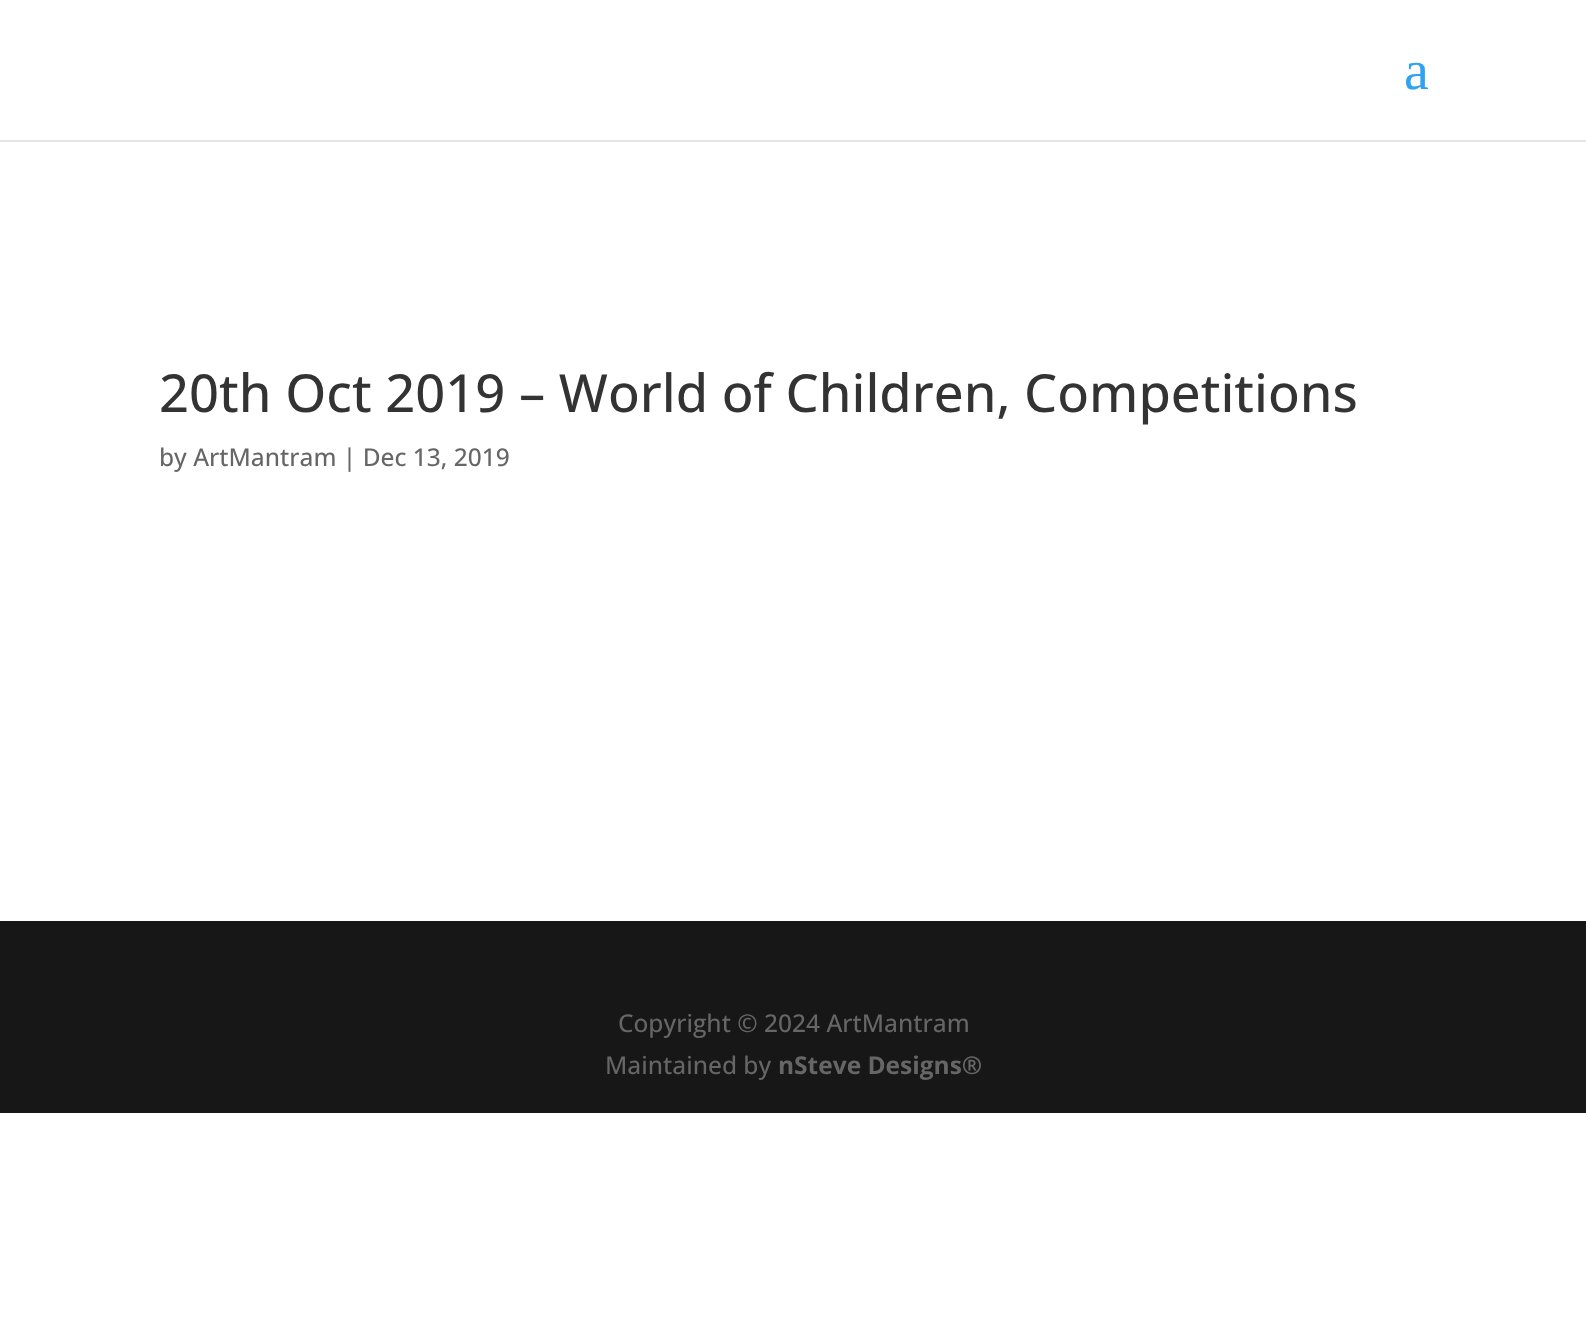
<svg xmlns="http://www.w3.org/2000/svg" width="1586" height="1338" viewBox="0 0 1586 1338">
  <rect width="100%" height="100%" fill="rgb(255,255,255)"/>
  <rect x="0" y="140" width="1586" height="2" fill="rgb(230,230,230)"/>
  <text x="1404" y="89" font-family="Liberation Serif" font-size="56" fill="rgb(46,163,242)">a</text>
  <text x="159" y="412" font-family="Open Sans" font-size="52.5" font-weight="500" fill="rgb(51,51,51)">20th Oct 2019 – World of Children, Competitions</text>
  <text x="159" y="466" font-family="Open Sans" font-size="24.5" font-weight="500" fill="rgb(102,102,102)">by ArtMantram | Dec 13, 2019</text>
  <rect x="0" y="921" width="1586" height="192" fill="rgb(23,23,23)"/>
  <g font-family="Open Sans" font-size="24.5" font-weight="500" fill="rgb(102,102,102)">
    <text x="618" y="1032">Copyright © 2024 ArtMantram</text>
    <text x="605" y="1074">Maintained by</text>
  </g>
  <text x="778" y="1074" font-family="Open Sans" font-size="24.5" font-weight="bold" fill="rgb(102,102,102)">nSteve Designs®</text>
</svg>
